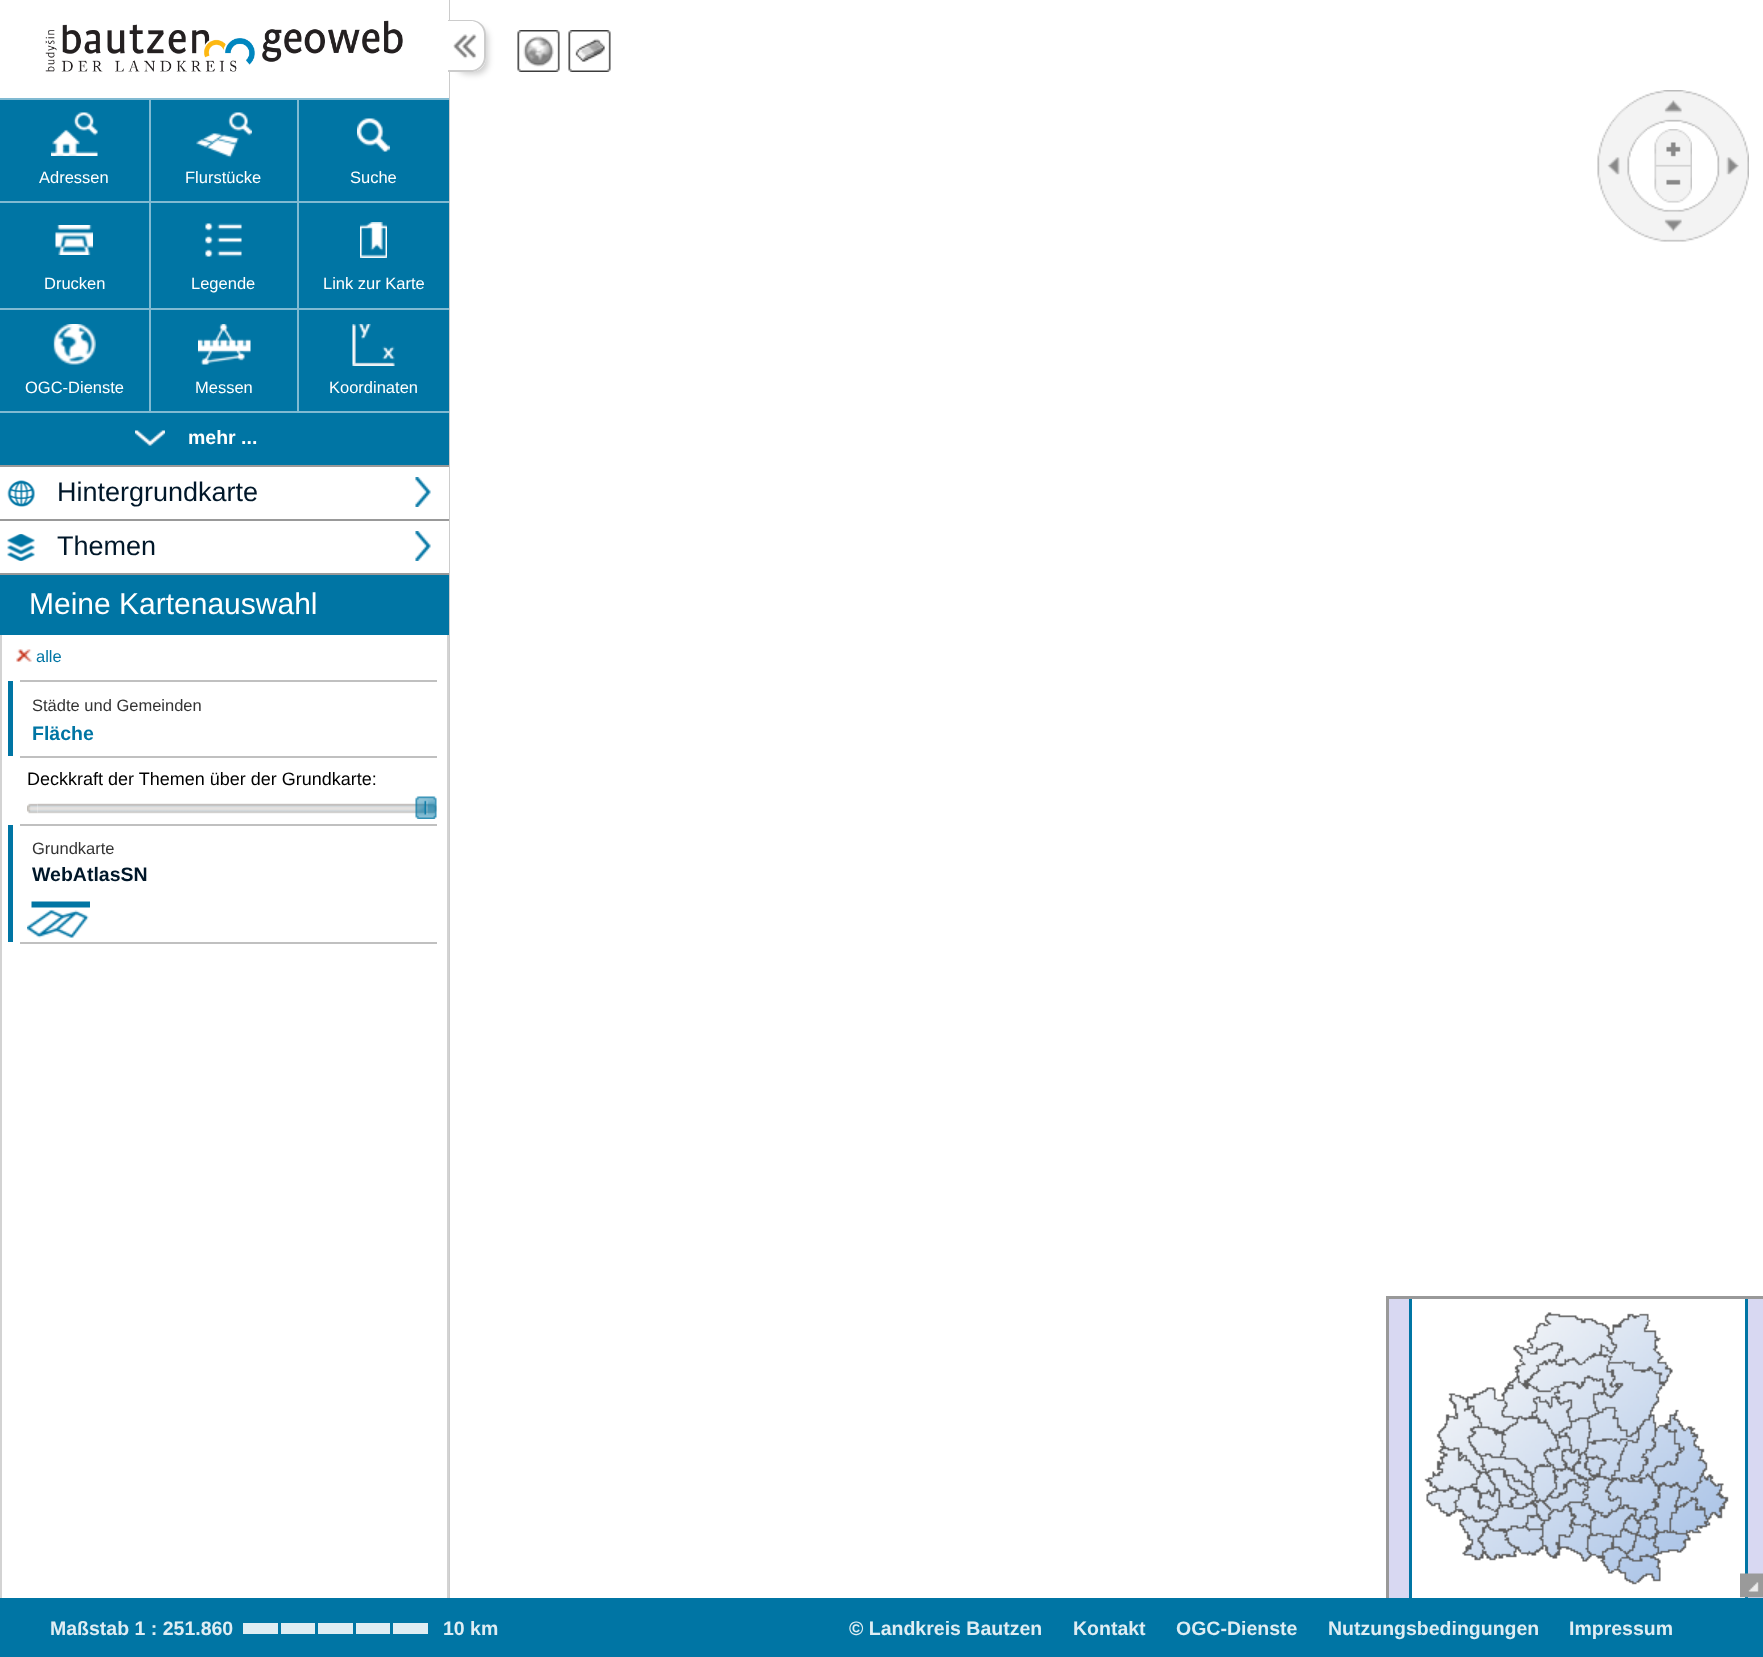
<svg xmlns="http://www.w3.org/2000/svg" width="1763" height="1657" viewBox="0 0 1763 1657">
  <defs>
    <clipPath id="clip1"><rect x="1389" y="1299" width="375" height="299"/></clipPath>
  </defs>
  <rect width="100%" height="100%" fill="rgb(255,255,255)"/>
  <rect x="1386" y="1296" width="377" height="3" fill="rgb(153,153,153)"/>
  <rect x="1386" y="1296" width="3" height="302" fill="rgb(153,153,153)"/>
  <image x="1424" y="1312" width="305" height="273" href="pic2.png"/>
  <g clip-path="url(#clip1)">
    <rect x="1410.5" y="1254.5" width="336" height="385" fill="none" stroke="rgb(0,117,164)" stroke-width="3"/>
  </g>
  <image x="517" y="30" width="43" height="42" href="pic4.png"/>
  <image x="568" y="30" width="43" height="42" href="pic5.png"/>
  <rect x="449" y="0" width="1" height="1598" fill="rgb(204,204,204)"/>
  <image x="45" y="20" width="358" height="52" href="pic14.png"/>
  <rect x="0" y="100" width="149" height="101" fill="rgb(0,117,164)"/>
  <rect x="0" y="98" width="149" height="2" fill="rgb(128,186,210)"/>
  <rect x="0" y="201" width="149" height="2" fill="rgb(128,186,210)"/>
  <image x="51" y="112" width="47" height="44" href="pic15.png"/>
  <text x="39" y="183" font-family="Liberation Sans" font-size="16.5" fill="rgb(255,255,255)">Adressen</text>
  <rect x="150" y="99" width="148" height="103" fill="rgb(0,117,164)" stroke="rgb(128,186,210)" stroke-width="2"/>
  <image x="196" y="112" width="56" height="46" href="pic16.png"/>
  <text x="185" y="183" font-family="Liberation Sans" font-size="16.5" fill="rgb(255,255,255)">Flurstücke</text>
  <rect x="299" y="100" width="150" height="101" fill="rgb(0,117,164)"/>
  <rect x="299" y="98" width="150" height="2" fill="rgb(128,186,210)"/>
  <rect x="299" y="201" width="150" height="2" fill="rgb(128,186,210)"/>
  <image x="357" y="118" width="33" height="34" href="pic17.png"/>
  <text x="350" y="183" font-family="Liberation Sans" font-size="16.5" fill="rgb(255,255,255)">Suche</text>
  <rect x="0" y="203" width="149" height="105" fill="rgb(0,117,164)"/>
  <image x="55" y="225" width="38" height="30" href="pic18.png"/>
  <text x="44" y="289" font-family="Liberation Sans" font-size="16.5" fill="rgb(255,255,255)">Drucken</text>
  <rect x="151" y="203" width="146" height="105" fill="rgb(0,117,164)"/>
  <rect x="297" y="203" width="2" height="105" fill="rgb(128,186,210)"/>
  <rect x="149" y="203" width="2" height="105" fill="rgb(128,186,210)"/>
  <image x="205" y="223" width="37" height="34" href="pic19.png"/>
  <text x="191" y="289" font-family="Liberation Sans" font-size="16.5" fill="rgb(255,255,255)">Legende</text>
  <rect x="299" y="203" width="150" height="105" fill="rgb(0,117,164)"/>
  <image x="360" y="222" width="27" height="36" href="pic20.png"/>
  <text x="323" y="289" font-family="Liberation Sans" font-size="16.5" fill="rgb(255,255,255)">Link zur Karte</text>
  <rect x="0" y="310" width="149" height="101" fill="rgb(0,117,164)"/>
  <rect x="0" y="308" width="149" height="2" fill="rgb(128,186,210)"/>
  <rect x="0" y="411" width="149" height="2" fill="rgb(128,186,210)"/>
  <image x="53" y="324" width="43" height="41" href="pic21.png"/>
  <text x="25" y="393" font-family="Liberation Sans" font-size="16.5" fill="rgb(255,255,255)">OGC-Dienste</text>
  <rect x="150" y="309" width="148" height="103" fill="rgb(0,117,164)" stroke="rgb(128,186,210)" stroke-width="2"/>
  <image x="198" y="324" width="53" height="41" href="pic22.png"/>
  <text x="195" y="393" font-family="Liberation Sans" font-size="16.5" fill="rgb(255,255,255)">Messen</text>
  <rect x="299" y="310" width="150" height="101" fill="rgb(0,117,164)"/>
  <rect x="299" y="308" width="150" height="2" fill="rgb(128,186,210)"/>
  <rect x="299" y="411" width="150" height="2" fill="rgb(128,186,210)"/>
  <image x="352" y="324" width="43" height="42" href="pic23.png"/>
  <text x="329" y="393" font-family="Liberation Sans" font-size="16.5" fill="rgb(255,255,255)">Koordinaten</text>
  <rect x="0" y="465" width="449" height="2" fill="rgb(153,153,153)"/>
  <rect x="0" y="413" width="449" height="52" fill="rgb(0,117,164)"/>
  <image x="135" y="430" width="30" height="16" href="pic24.png"/>
  <text x="188" y="444" font-family="Liberation Sans" font-size="19.5" font-weight="bold" fill="rgb(255,255,255)">mehr ...</text>
  <rect x="0" y="519" width="449" height="2" fill="rgb(153,153,153)"/>
  <image x="7" y="480" width="28" height="27" href="pic25.png"/>
  <text x="57" y="501" font-family="Liberation Sans" font-size="27" fill="rgb(0,23,41)">Hintergrundkarte</text>
  <rect x="0" y="573" width="449" height="2" fill="rgb(153,153,153)"/>
  <image x="7" y="534" width="28" height="27" href="pic26.png"/>
  <text x="57" y="555" font-family="Liberation Sans" font-size="27" fill="rgb(0,23,41)">Themen</text>
  <rect x="447" y="632" width="2" height="966" fill="rgb(211,211,211)"/>
  <rect x="0" y="632" width="2" height="966" fill="rgb(211,211,211)"/>
  <image x="16" y="649" width="16" height="13" href="pic27.png"/>
  <text x="36" y="662" font-family="Liberation Sans" font-size="16.5" fill="rgb(0,117,164)">alle</text>
  <rect x="20" y="680" width="417" height="2" fill="rgb(192,192,192)"/>
  <rect x="20" y="756" width="417" height="2" fill="rgb(192,192,192)"/>
  <rect x="8" y="681" width="5" height="75" fill="rgb(0,117,164)"/>
  <text x="32" y="711" font-family="Liberation Sans" font-size="16.5" fill="rgb(51,51,51)">Städte und Gemeinden</text>
  <text x="32" y="740" font-family="Liberation Sans" font-size="19.5" font-weight="bold" fill="rgb(0,117,164)">Fläche</text>
  <rect x="20" y="824" width="417" height="2" fill="rgb(192,192,192)"/>
  <text x="27" y="785" font-family="Liberation Sans" font-size="18" fill="rgb(0,0,0)">Deckkraft der Themen über der Grundkarte:</text>
  <image x="27" y="803" width="11" height="11" href="pic28.png"/>
  <image x="426" y="803" width="11" height="11" href="pic29.png"/>
  <image x="37" y="803" width="389" height="11" href="pic30.png"/>
  <image x="415" y="796" width="22" height="23" href="pic31.png"/>
  <rect x="20" y="942" width="417" height="2" fill="rgb(192,192,192)"/>
  <rect x="8" y="825" width="5" height="117" fill="rgb(0,117,164)"/>
  <text x="32" y="854" font-family="Liberation Sans" font-size="16.5" fill="rgb(51,51,51)">Grundkarte</text>
  <text x="32" y="881" font-family="Liberation Sans" font-size="19.5" font-weight="bold" fill="rgb(0,23,41)">WebAtlasSN</text>
  <image x="27" y="901" width="63" height="37" href="pic32.png"/>
  <g clip-path="url(#clip1)">
    <rect x="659" y="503" width="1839" height="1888" fill="none" stroke="rgb(216,216,242)" stroke-width="1500"/>
  </g>
  <rect x="456" y="27" width="32" height="47" rx="12" fill="rgba(0,0,0,0.2)" filter="blur(3px)"/>
  <path d="M449 20H471C479.5 20 486 26.5 486 35V57C486 65.5 479.5 72 471 72H449Z" fill="rgb(255,255,255)"/>
  <image x="453" y="34" width="24" height="25" href="pic1.png"/>
  <path d="M448 20H471C479 20 486 26 486 34V57C486 65 479 72 471 72H448ZM448 21H471C478 21 484 27 484 34V57C484 64 478 70 471 70H448Z" fill="rgb(204,204,204)" fill-rule="evenodd"/>
  <image x="1740" y="1573" width="23" height="25" href="pic3.png"/>
  <image x="1597" y="90" width="152" height="152" href="pic6.png"/>
  <image x="1664" y="100" width="18" height="13" href="pic7.png"/>
  <image x="1607" y="157" width="13" height="18" href="pic8.png"/>
  <image x="1726" y="157" width="13" height="18" href="pic9.png"/>
  <image x="1664" y="219" width="18" height="13" href="pic10.png"/>
  <image x="1654" y="129" width="38" height="74" href="pic11.png"/>
  <image x="1666" y="142" width="15" height="15" href="pic12.png"/>
  <image x="1666" y="179" width="15" height="6" href="pic13.png"/>
  <rect x="0" y="575" width="449" height="60" fill="rgb(0,117,164)"/>
  <text x="29" y="614" font-family="Liberation Sans" font-size="30" fill="rgb(255,255,255)">Meine Kartenauswahl</text>
  <rect x="0" y="1598" width="1763" height="59" fill="rgb(0,117,164)"/>
  <text x="50" y="1635" font-family="Liberation Sans" font-size="19.5" font-weight="bold" fill="rgb(222,237,243)">Maßstab 1 : 251.860</text>
  <rect x="243" y="1623" width="35" height="11" fill="rgb(222,237,243)"/>
  <rect x="281" y="1623" width="34" height="11" fill="rgb(222,237,243)"/>
  <rect x="318" y="1623" width="35" height="11" fill="rgb(222,237,243)"/>
  <rect x="356" y="1623" width="34" height="11" fill="rgb(222,237,243)"/>
  <rect x="393" y="1623" width="35" height="11" fill="rgb(222,237,243)"/>
  <g font-family="Liberation Sans" font-size="19.5" font-weight="bold" fill="rgb(222,237,243)">
    <text x="443" y="1635">10 km</text>
    <text x="849" y="1635">© Landkreis Bautzen</text>
    <text x="1073" y="1635">Kontakt</text>
    <text x="1176" y="1635">OGC-Dienste</text>
    <text x="1328" y="1635">Nutzungsbedingungen</text>
    <text x="1569" y="1635">Impressum</text>
  </g>
  <image x="415" y="477" width="16" height="30" href="pic33.png"/>
  <image x="415" y="531" width="16" height="30" href="pic33.png"/>
</svg>
